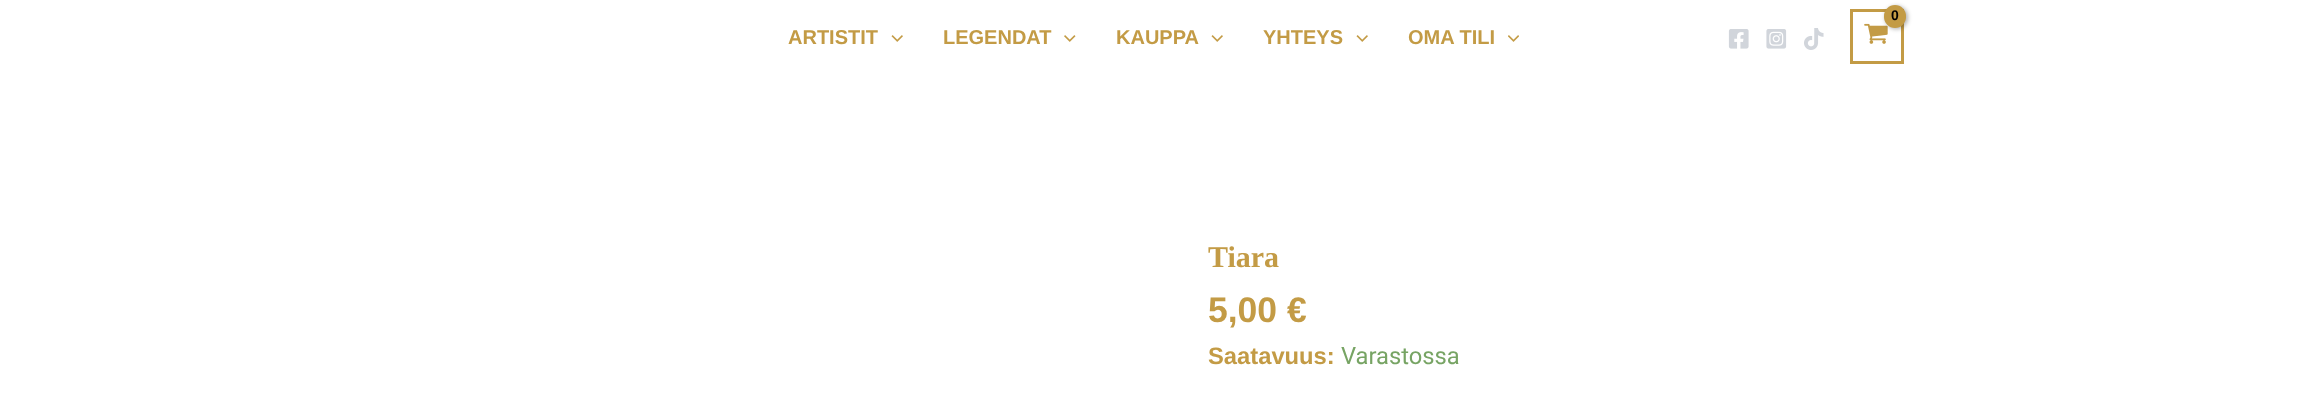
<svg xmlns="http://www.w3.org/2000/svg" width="2307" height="401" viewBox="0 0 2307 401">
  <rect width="100%" height="100%" fill="rgb(255,255,255)"/>
  <rect x="1851.5" y="10.5" width="51" height="52" fill="none" stroke="rgb(195,155,69)" stroke-width="3"/>
  <image x="1864" y="23" width="24" height="21" href="pic1.png"/>
  <rect x="1885" y="6" width="23" height="23" rx="11.5" fill="rgba(0,0,0,0.3)" filter="blur(2px)"/>
  <rect x="1884" y="5" width="22" height="23" rx="11" fill="rgb(195,155,69)"/>
  <text x="1891" y="20" font-family="Liberation Sans" font-size="14" font-weight="bold" letter-spacing="-1" fill="rgb(0,0,0)">0</text>
  <image x="1728" y="29" width="21" height="20" href="pic2.png"/>
  <image x="1766" y="29" width="21" height="20" href="pic3.png"/>
  <image x="1804" y="28" width="20" height="22" href="pic4.png"/>
  <text x="788" y="44" font-family="Liberation Sans" font-size="20" font-weight="bold" fill="rgb(195,155,69)">ARTISTIT</text>
  <image x="891" y="35" width="12" height="7" href="pic5.png"/>
  <text x="943" y="44" font-family="Liberation Sans" font-size="20" font-weight="bold" fill="rgb(195,155,69)">LEGENDAT</text>
  <image x="1064" y="35" width="12" height="7" href="pic6.png"/>
  <text x="1116" y="44" font-family="Liberation Sans" font-size="20" font-weight="bold" fill="rgb(195,155,69)">KAUPPA</text>
  <image x="1211" y="35" width="12" height="7" href="pic5.png"/>
  <text x="1263" y="44" font-family="Liberation Sans" font-size="20" font-weight="bold" fill="rgb(195,155,69)">YHTEYS</text>
  <image x="1356" y="35" width="12" height="7" href="pic5.png"/>
  <text x="1408" y="44" font-family="Liberation Sans" font-size="20" font-weight="bold" fill="rgb(195,155,69)">OMA TILI</text>
  <image x="1508" y="35" width="11" height="7" href="pic7.png"/>
  <text x="1208" y="267" font-family="Liberation Serif" font-size="30" font-weight="bold" fill="rgb(195,155,69)">Tiara</text>
  <text x="1208" y="322" font-family="Liberation Sans" font-size="35.5" font-weight="bold" fill="rgb(195,155,69)">5,00 €</text>
  <text x="1208" y="364" font-family="Liberation Sans" font-size="23.75" font-weight="bold" fill="rgb(195,155,69)">Saatavuus:</text>
  <text x="1341" y="364" font-family="Roboto" font-size="23.75" fill="rgb(119,164,100)">Varastossa</text>
</svg>
